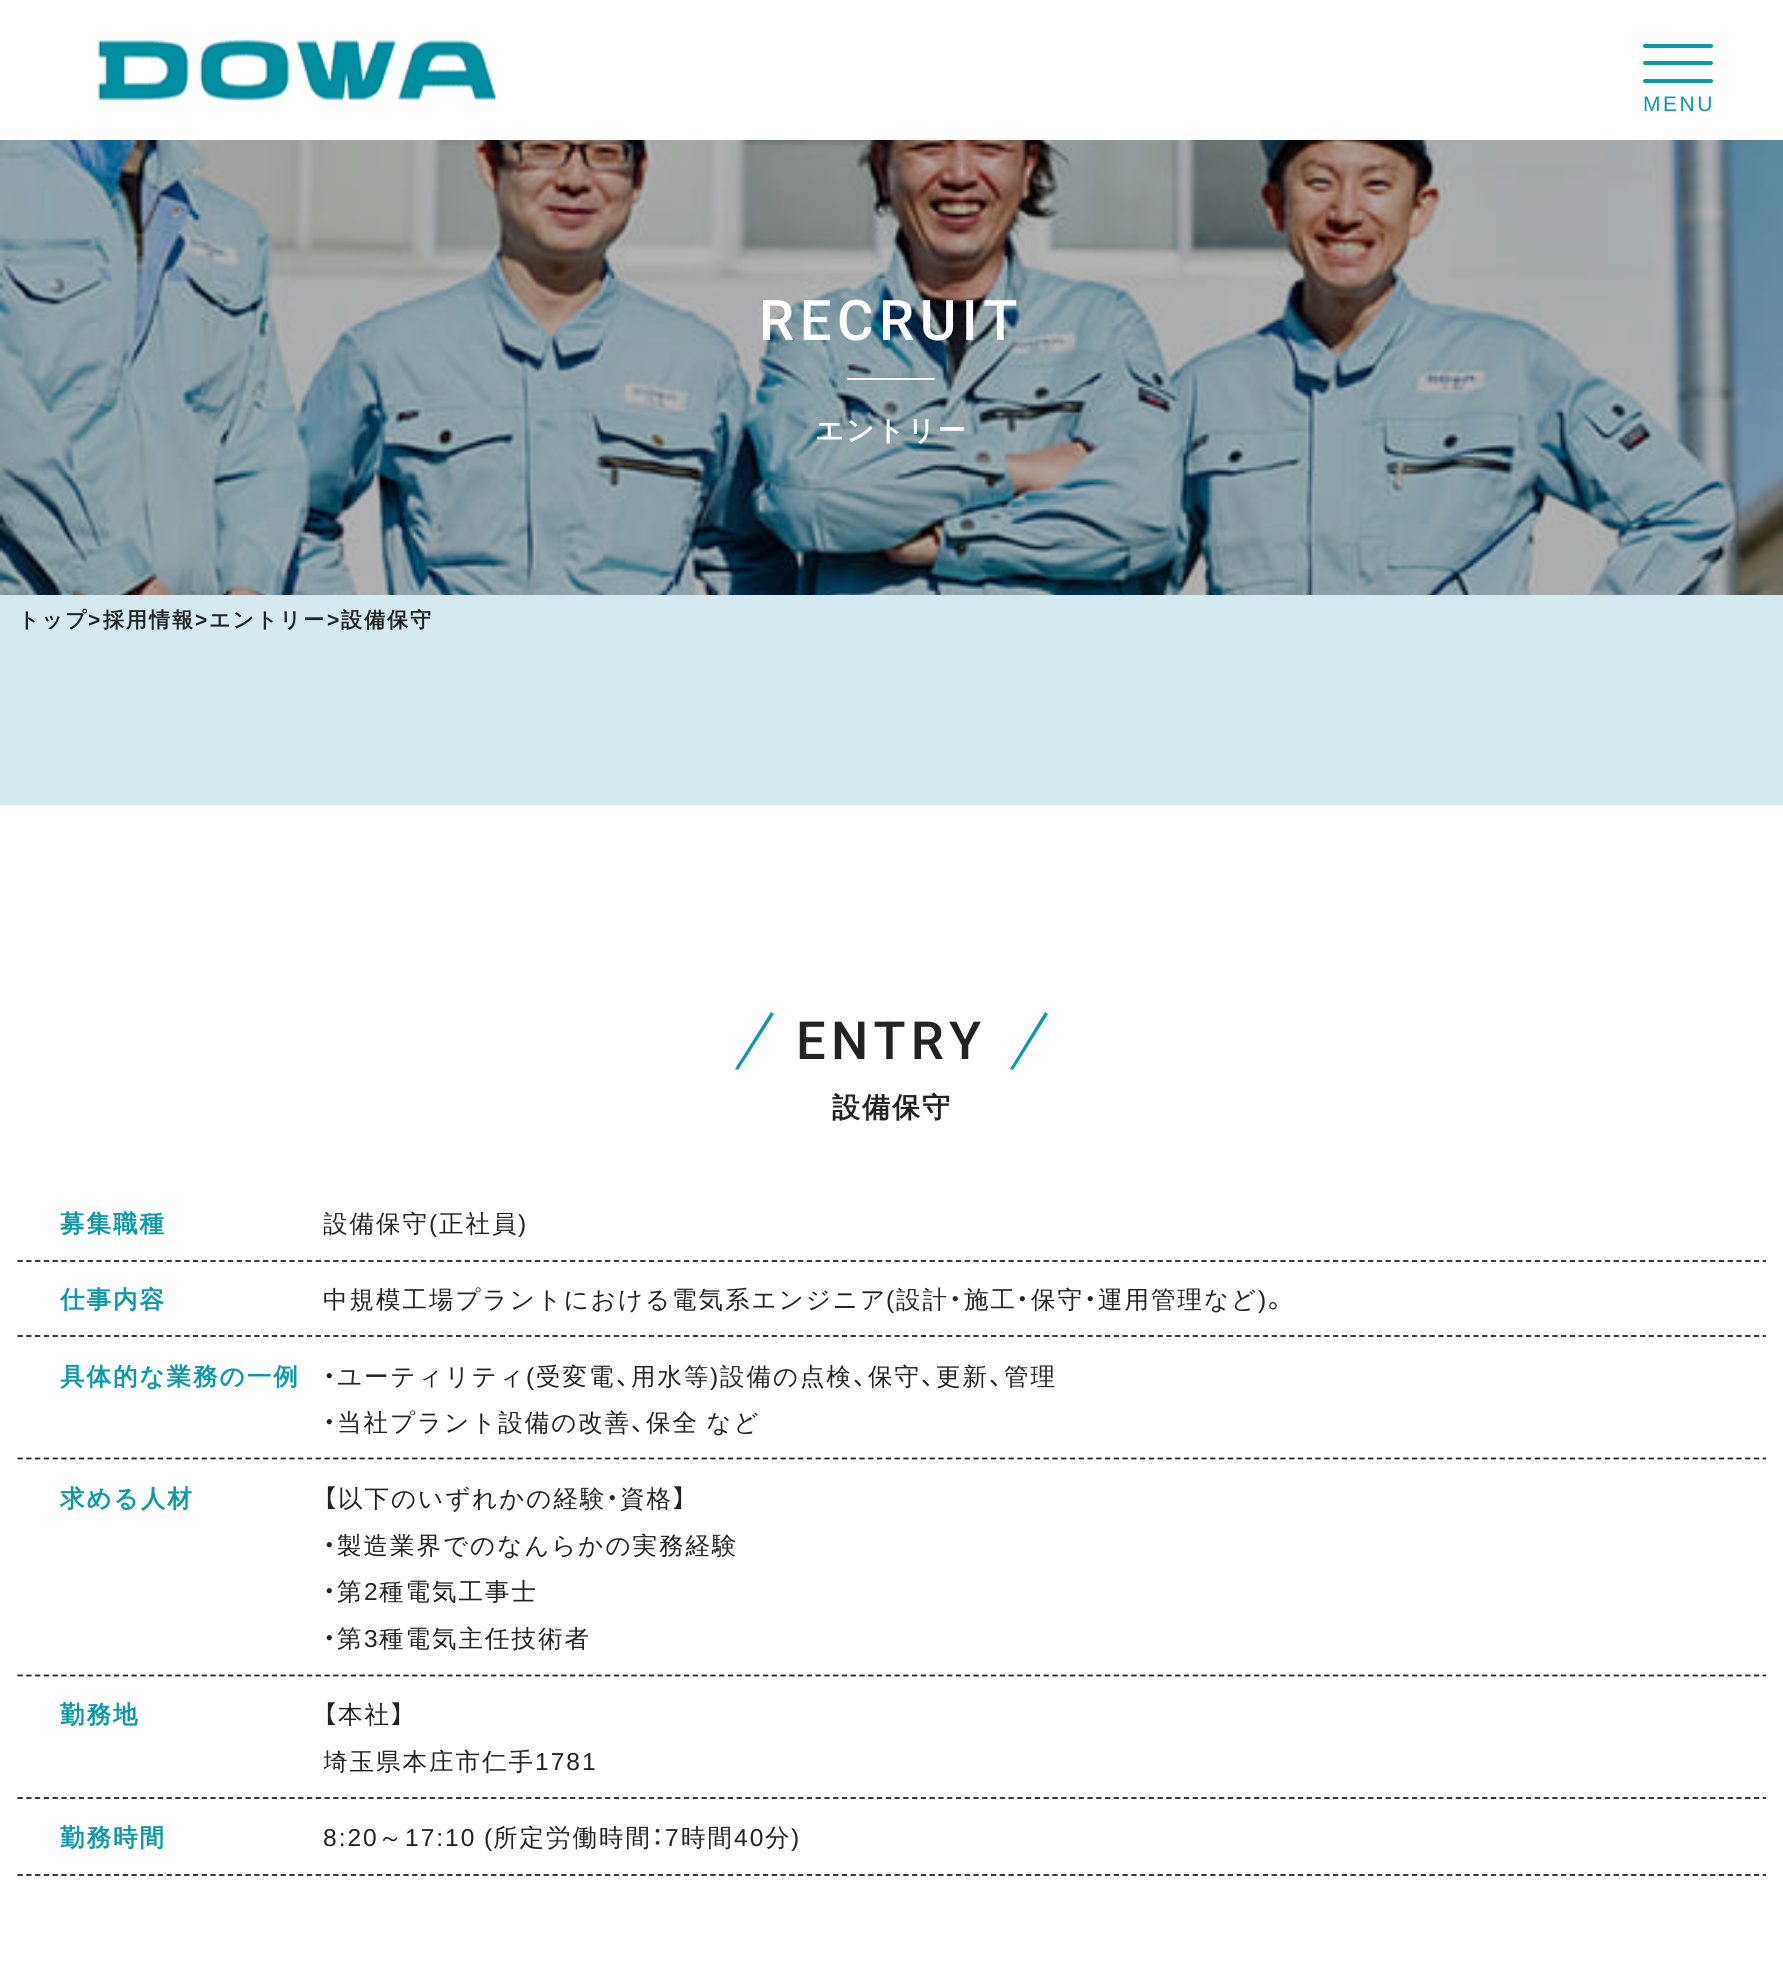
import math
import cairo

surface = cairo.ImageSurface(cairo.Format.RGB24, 1783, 1979)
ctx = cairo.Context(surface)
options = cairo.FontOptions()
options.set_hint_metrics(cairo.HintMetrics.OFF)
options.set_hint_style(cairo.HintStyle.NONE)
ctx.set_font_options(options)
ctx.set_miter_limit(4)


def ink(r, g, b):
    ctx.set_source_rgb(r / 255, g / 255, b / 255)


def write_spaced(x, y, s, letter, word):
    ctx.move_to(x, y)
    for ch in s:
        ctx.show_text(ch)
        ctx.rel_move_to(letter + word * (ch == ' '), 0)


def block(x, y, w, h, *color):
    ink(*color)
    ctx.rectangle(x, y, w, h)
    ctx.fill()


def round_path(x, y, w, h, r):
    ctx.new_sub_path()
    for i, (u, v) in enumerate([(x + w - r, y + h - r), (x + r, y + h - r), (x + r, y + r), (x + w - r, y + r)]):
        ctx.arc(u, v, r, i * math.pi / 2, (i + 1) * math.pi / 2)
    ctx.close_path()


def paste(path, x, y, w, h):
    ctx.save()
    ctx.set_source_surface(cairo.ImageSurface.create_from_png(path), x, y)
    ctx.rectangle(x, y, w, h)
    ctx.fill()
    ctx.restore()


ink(255, 255, 255)
ctx.paint()
paste("pic1.png", 97, 38, 400, 64)
ink(11, 153, 170)
round_path(1643, 44, 70, 4, 2)
ctx.fill()
round_path(1643, 61, 70, 4, 2)
ctx.fill()
round_path(1643, 79, 70, 4, 2)
ctx.fill()
ctx.select_font_face("Liberation Sans")
ctx.set_font_size(21)
write_spaced(1643, 111, "MENU", 2.5, 0)
paste("pic2.png", 0, 140, 1783, 455)
ctx.select_font_face("Roboto Medium")
ctx.set_font_size(56)
ink(255, 255, 255)
write_spaced(759, 340, "RECRUIT", 5.5, 0)
block(847, 378, 88, 2, 255, 255, 255)
ctx.select_font_face("WenQuanYi Zen Hei", cairo.FontSlant.NORMAL, cairo.FontWeight.BOLD)
ctx.set_font_size(28)
write_spaced(815, 440, "エントリー", 2, 0)
block(0, 595, 1783, 210, 213, 233, 241)
ctx.set_font_size(21)
ink(34, 34, 34)
write_spaced(18, 627, "トップ", 2, 0)
ctx.select_font_face("Liberation Sans", cairo.FontSlant.NORMAL, cairo.FontWeight.BOLD)
write_spaced(88, 627, ">", 2, 0)
ctx.select_font_face("WenQuanYi Zen Hei", cairo.FontSlant.NORMAL, cairo.FontWeight.BOLD)
write_spaced(103, 627, "採用情報", 2, 0)
ctx.select_font_face("Liberation Sans", cairo.FontSlant.NORMAL, cairo.FontWeight.BOLD)
write_spaced(195, 627, ">", 2, 0)
ctx.select_font_face("WenQuanYi Zen Hei", cairo.FontSlant.NORMAL, cairo.FontWeight.BOLD)
write_spaced(209, 627, "エントリー", 2, 0)
ctx.select_font_face("Liberation Sans", cairo.FontSlant.NORMAL, cairo.FontWeight.BOLD)
write_spaced(327, 627, ">", 2, 0)
ctx.select_font_face("WenQuanYi Zen Hei", cairo.FontSlant.NORMAL, cairo.FontWeight.BOLD)
write_spaced(341, 627, "設備保守", 2, 0)
ink(11, 153, 170)
ctx.new_path()
ctx.move_to(771, 1012)
ctx.line_to(774, 1014)
ctx.line_to(738, 1070)
ctx.line_to(735, 1069)
ctx.close_path()
ctx.fill()
ctx.select_font_face("Roboto Medium")
ctx.set_font_size(52.5)
ink(34, 34, 34)
write_spaced(796, 1059, "ENTRY", 5.25, 0)
ink(11, 153, 170)
ctx.new_path()
ctx.move_to(1045, 1012)
ctx.line_to(1048, 1014)
ctx.line_to(1013, 1070)
ctx.line_to(1010, 1069)
ctx.close_path()
ctx.fill()
ctx.select_font_face("WenQuanYi Zen Hei", cairo.FontSlant.NORMAL, cairo.FontWeight.BOLD)
ctx.set_font_size(28)
ink(34, 34, 34)
write_spaced(832, 1117, "設備保守", 2, 0)
ctx.new_path()
ctx.move_to(17.5, 1261)
ctx.line_to(1766, 1261)
ctx.set_line_width(1.8)
ctx.set_dash([5.25, 3.52])
ctx.stroke()
ctx.set_font_size(24.5)
ink(11, 153, 170)
write_spaced(60, 1232, "募集職種", 2, 0)
ctx.save()
ctx.rectangle(324, 1185, 1400, 75)
ctx.clip()
ctx.select_font_face("WenQuanYi Zen Hei Medium")
ink(34, 34, 34)
write_spaced(323, 1232, "設備保守", 2, 0)
ctx.restore()
ctx.select_font_face("Liberation Sans")
ink(34, 34, 34)
write_spaced(429, 1232, "(", 2, 0)
ctx.select_font_face("WenQuanYi Zen Hei Medium")
write_spaced(439, 1232, "正社員", 2, 0)
ctx.select_font_face("Liberation Sans")
write_spaced(518, 1232, ")", 2, 0)
ctx.new_path()
ctx.move_to(17.5, 1336)
ctx.line_to(1766, 1336)
ctx.stroke()
ctx.select_font_face("WenQuanYi Zen Hei", cairo.FontSlant.NORMAL, cairo.FontWeight.BOLD)
ink(11, 153, 170)
write_spaced(60, 1308, "仕事内容", 2, 0)
ctx.select_font_face("WenQuanYi Zen Hei Medium")
ink(34, 34, 34)
write_spaced(323, 1308, "中規模工場プラントにおける電気系エンジニア", 2, 0)
ctx.select_font_face("Liberation Sans")
write_spaced(886, 1308, "(", 2, 0)
ctx.select_font_face("WenQuanYi Zen Hei Medium")
write_spaced(896, 1308, "設計", 2, 0)
ctx.select_font_face("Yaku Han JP")
write_spaced(949, 1308, "・", 2, 0)
ctx.select_font_face("WenQuanYi Zen Hei Medium")
write_spaced(964, 1308, "施工", 2, 0)
ctx.select_font_face("Yaku Han JP")
write_spaced(1016, 1308, "・", 2, 0)
ctx.select_font_face("WenQuanYi Zen Hei Medium")
write_spaced(1031, 1308, "保守", 2, 0)
ctx.select_font_face("Yaku Han JP")
write_spaced(1084, 1308, "・", 2, 0)
ctx.select_font_face("WenQuanYi Zen Hei Medium")
write_spaced(1098, 1308, "運用管理など", 2, 0)
ctx.select_font_face("Liberation Sans")
write_spaced(1258, 1308, ")", 2, 0)
ctx.select_font_face("Yaku Han JP")
write_spaced(1268, 1308, "。", 2, 0)
ctx.new_path()
ctx.move_to(17.5, 1458.5)
ctx.line_to(1766, 1458.5)
ctx.stroke()
ctx.select_font_face("WenQuanYi Zen Hei", cairo.FontSlant.NORMAL, cairo.FontWeight.BOLD)
ink(11, 153, 170)
write_spaced(60, 1385, "具体的な業務の一例", 2, 0)
ctx.select_font_face("Yaku Han JP")
ink(34, 34, 34)
write_spaced(323, 1385, "・", 2, 0)
ctx.select_font_face("WenQuanYi Zen Hei Medium")
write_spaced(337, 1385, "ユーティリティ", 2, 0)
ctx.select_font_face("Liberation Sans")
write_spaced(526, 1385, "(", 2, 0)
ctx.select_font_face("WenQuanYi Zen Hei Medium")
write_spaced(536, 1385, "受変電", 2, 0)
write_spaced(631, 1385, "用水等", 2, 0)
ctx.select_font_face("Liberation Sans")
write_spaced(710, 1385, ")", 2, 0)
ctx.select_font_face("WenQuanYi Zen Hei Medium")
write_spaced(720, 1385, "設備の点検", 2, 0)
write_spaced(868, 1385, "保守", 2, 0)
write_spaced(936, 1385, "更新", 2, 0)
write_spaced(1004, 1385, "管理", 2, 0)
ctx.select_font_face("Yaku Han JP")
write_spaced(616, 1385, "、", 2, 0)
write_spaced(853, 1385, "、", 2, 0)
write_spaced(921, 1385, "、", 2, 0)
write_spaced(989, 1385, "、", 2, 0)
write_spaced(323, 1431, "・", 2, 0)
ctx.select_font_face("WenQuanYi Zen Hei Medium")
write_spaced(337, 1431, "当社プラント設備の改善", 2, 0)
write_spaced(646, 1431, "保全 など", 2, -2)
ctx.select_font_face("Yaku Han JP")
write_spaced(631, 1431, "、", 2, 0)
ctx.new_path()
ctx.move_to(17.5, 1675.5)
ctx.line_to(1766, 1675.5)
ctx.stroke()
ctx.select_font_face("WenQuanYi Zen Hei", cairo.FontSlant.NORMAL, cairo.FontWeight.BOLD)
ink(11, 153, 170)
write_spaced(60, 1507, "求める人材", 2, 0)
ctx.select_font_face("Yaku Han JP")
ink(34, 34, 34)
write_spaced(323, 1507, "【", 2, 0)
ctx.select_font_face("WenQuanYi Zen Hei Medium")
write_spaced(338, 1507, "以下のいずれかの経験", 2, 0)
ctx.select_font_face("Yaku Han JP")
write_spaced(606, 1507, "・", 2, 0)
ctx.select_font_face("WenQuanYi Zen Hei Medium")
write_spaced(620, 1507, "資格", 2, 0)
ctx.select_font_face("Yaku Han JP")
write_spaced(673, 1507, "】", 2, 0)
write_spaced(323, 1554, "・", 2, 0)
ctx.select_font_face("WenQuanYi Zen Hei Medium")
write_spaced(337, 1554, "製造業界でのなんらかの実務経験", 2, 0)
ctx.select_font_face("Yaku Han JP")
write_spaced(323, 1600, "・", 2, 0)
ctx.select_font_face("WenQuanYi Zen Hei Medium")
write_spaced(337, 1600, "第", 2, 0)
ctx.select_font_face("Liberation Sans")
write_spaced(364, 1600, "2", 2, 0)
ctx.select_font_face("WenQuanYi Zen Hei Medium")
write_spaced(379, 1600, "種電気工事士", 2, 0)
ctx.select_font_face("Yaku Han JP")
write_spaced(323, 1647, "・", 2, 0)
ctx.select_font_face("WenQuanYi Zen Hei Medium")
write_spaced(337, 1647, "第", 2, 0)
ctx.select_font_face("Liberation Sans")
write_spaced(364, 1647, "3", 2, 0)
ctx.select_font_face("WenQuanYi Zen Hei Medium")
write_spaced(379, 1647, "種電気主任技術者", 2, 0)
ctx.new_path()
ctx.move_to(17.5, 1798)
ctx.line_to(1766, 1798)
ctx.stroke()
ctx.select_font_face("WenQuanYi Zen Hei", cairo.FontSlant.NORMAL, cairo.FontWeight.BOLD)
ink(11, 153, 170)
write_spaced(60, 1723, "勤務地", 2, 0)
ctx.select_font_face("Yaku Han JP")
ink(34, 34, 34)
write_spaced(323, 1723, "【", 2, 0)
ctx.select_font_face("WenQuanYi Zen Hei Medium")
write_spaced(338, 1723, "本社", 2, 0)
ctx.select_font_face("Yaku Han JP")
write_spaced(391, 1723, "】", 2, 0)
ctx.save()
ctx.rectangle(324, 1677, 1400, 120)
ctx.clip()
ctx.select_font_face("WenQuanYi Zen Hei Medium")
write_spaced(323, 1770, "埼玉県本庄市仁手", 2, 0)
ctx.restore()
ctx.select_font_face("Liberation Sans")
write_spaced(535, 1770, "1781", 2, 0)
ctx.new_path()
ctx.move_to(17.5, 1875)
ctx.line_to(1766, 1875)
ctx.stroke()
ctx.select_font_face("WenQuanYi Zen Hei", cairo.FontSlant.NORMAL, cairo.FontWeight.BOLD)
ink(11, 153, 170)
write_spaced(60, 1846, "勤務時間", 2, 0)
ctx.select_font_face("Liberation Sans")
ink(34, 34, 34)
write_spaced(323, 1846, "8:20", 2, 0)
ctx.select_font_face("WenQuanYi Zen Hei Medium")
write_spaced(378, 1846, "～", 2, 0)
ctx.select_font_face("Liberation Sans")
write_spaced(405, 1846, "17:10 (", 2, -1)
ctx.select_font_face("WenQuanYi Zen Hei Medium")
write_spaced(493, 1846, "所定労働時間", 2, 0)
ctx.select_font_face("Yaku Han JP")
write_spaced(652, 1846, "：", 2, 0)
ctx.select_font_face("Liberation Sans")
write_spaced(665, 1846, "7", 2, 0)
ctx.select_font_face("WenQuanYi Zen Hei Medium")
write_spaced(681, 1846, "時間", 2, 0)
ctx.select_font_face("Liberation Sans")
write_spaced(734, 1846, "40", 2, 0)
ctx.select_font_face("WenQuanYi Zen Hei Medium")
write_spaced(765, 1846, "分", 2, 0)
ctx.select_font_face("Liberation Sans")
write_spaced(791, 1846, ")", 2, 0)
surface.write_to_png("screenshot.png")
